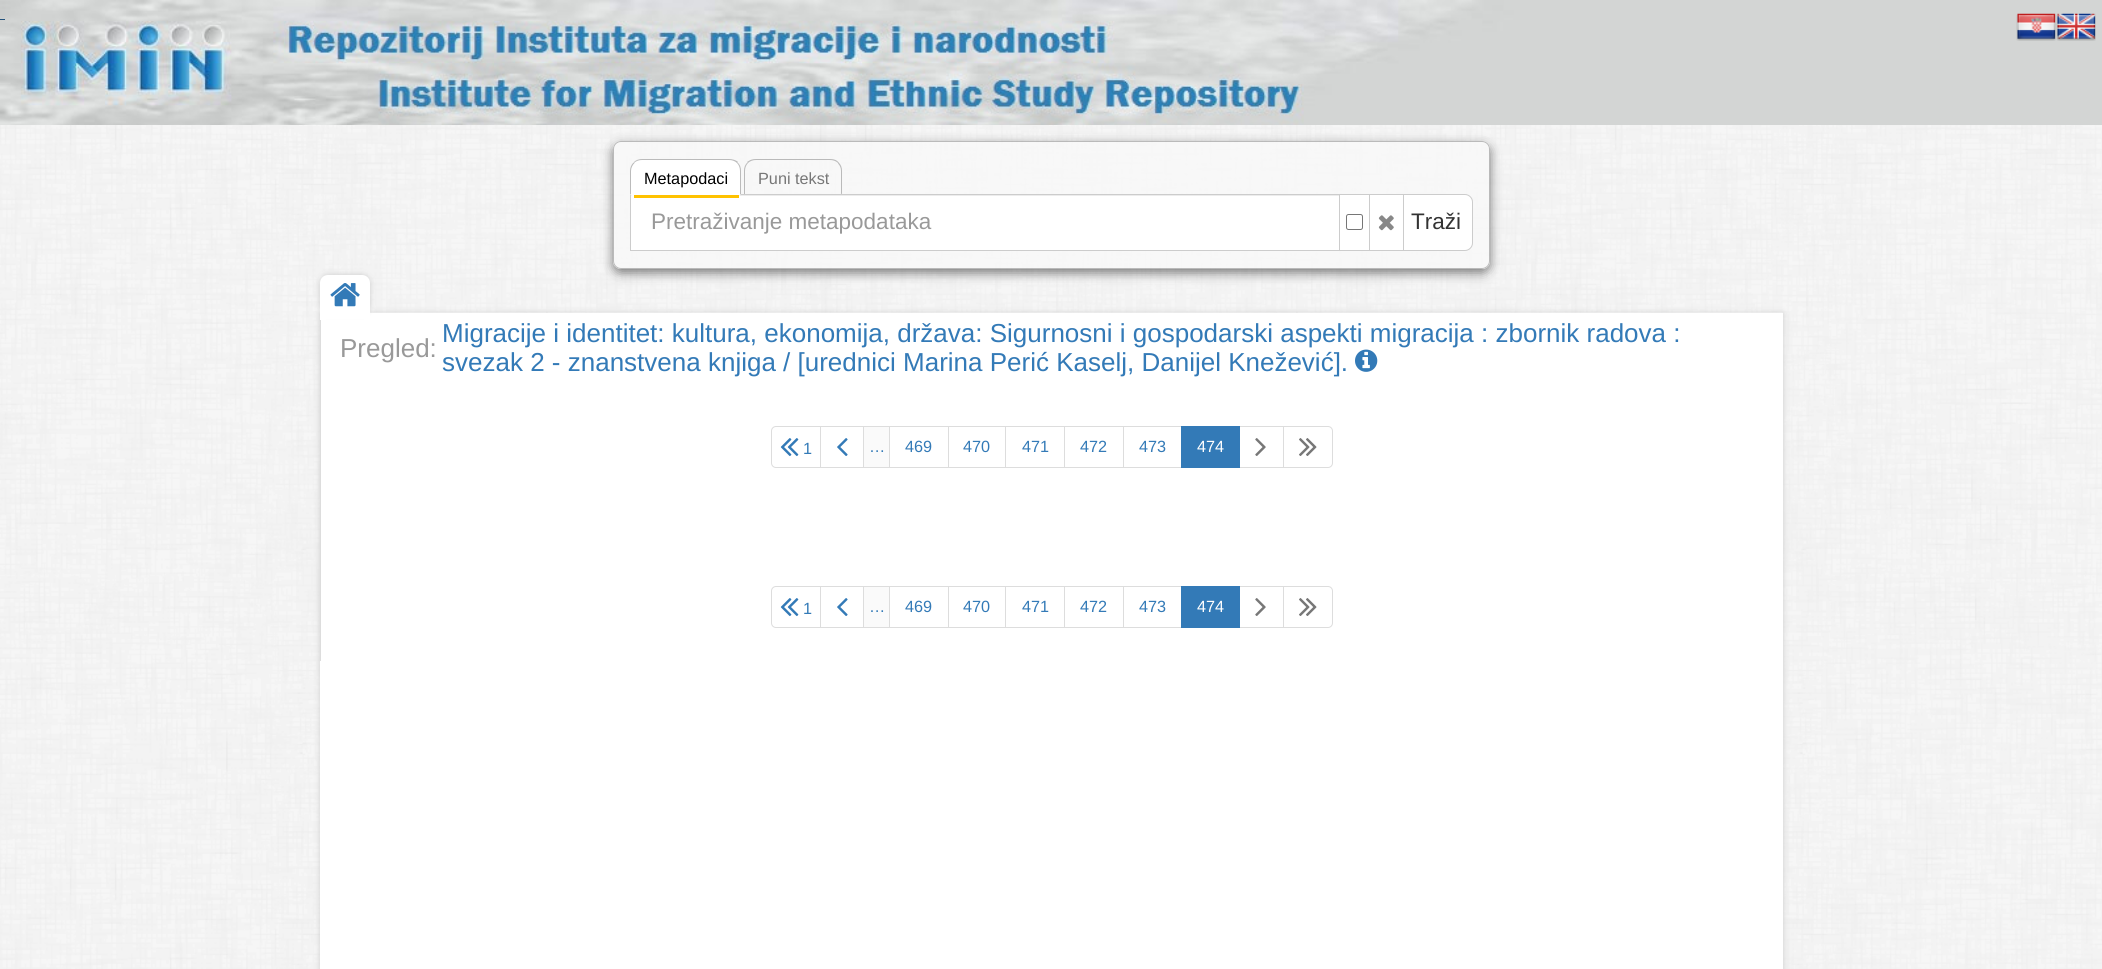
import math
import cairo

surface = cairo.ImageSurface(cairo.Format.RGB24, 2102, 969)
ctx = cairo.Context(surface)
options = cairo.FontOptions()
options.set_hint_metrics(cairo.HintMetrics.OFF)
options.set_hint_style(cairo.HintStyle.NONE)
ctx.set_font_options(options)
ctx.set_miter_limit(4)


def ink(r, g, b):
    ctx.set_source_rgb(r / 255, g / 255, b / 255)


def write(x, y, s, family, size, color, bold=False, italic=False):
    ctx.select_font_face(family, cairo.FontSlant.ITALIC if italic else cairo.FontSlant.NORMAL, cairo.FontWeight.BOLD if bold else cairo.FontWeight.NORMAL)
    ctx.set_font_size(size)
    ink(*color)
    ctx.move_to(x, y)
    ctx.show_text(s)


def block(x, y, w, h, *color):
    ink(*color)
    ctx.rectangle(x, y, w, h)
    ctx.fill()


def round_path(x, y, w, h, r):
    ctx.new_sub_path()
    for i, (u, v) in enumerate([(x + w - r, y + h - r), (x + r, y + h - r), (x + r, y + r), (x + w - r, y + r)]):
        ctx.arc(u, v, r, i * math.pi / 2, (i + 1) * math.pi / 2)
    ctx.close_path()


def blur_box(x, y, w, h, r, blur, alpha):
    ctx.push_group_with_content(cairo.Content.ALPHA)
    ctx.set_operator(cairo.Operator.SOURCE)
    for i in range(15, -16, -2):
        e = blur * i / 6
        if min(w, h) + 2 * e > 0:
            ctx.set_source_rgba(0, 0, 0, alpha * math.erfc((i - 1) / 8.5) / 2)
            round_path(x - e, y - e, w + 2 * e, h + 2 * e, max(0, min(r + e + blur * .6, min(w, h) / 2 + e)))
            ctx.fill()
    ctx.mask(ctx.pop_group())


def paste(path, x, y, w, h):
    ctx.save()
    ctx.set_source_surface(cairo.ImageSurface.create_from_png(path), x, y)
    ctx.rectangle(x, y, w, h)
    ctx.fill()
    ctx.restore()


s1 = dict(family="Liberation Sans", size=16.25, color=(0, 0, 0))
s2 = dict(family="Liberation Sans", size=16.25, color=(119, 119, 119))
s3 = dict(family="Liberation Sans", size=22.5, color=(153, 153, 153))
s4 = dict(family="Liberation Sans", size=22.5, color=(51, 51, 51))
s5 = dict(family="Liberation Sans", size=26, color=(153, 153, 153))
s6 = dict(family="Liberation Sans", size=26, color=(51, 122, 183))
s7 = dict(family="Liberation Sans", size=16.25, color=(51, 122, 183))
s8 = dict(family="Liberation Sans", size=16.25, color=(255, 255, 255))

ink(255, 255, 255)
ctx.paint()
paste("pic1.png", 0, 125, 2102, 844)
paste("pic2.png", 0, 0, 2102, 125)
block(0, 19, 5, 1, 35, 82, 124)
paste("pic3.png", 2016, 13, 40, 28)
paste("pic4.png", 2056, 13, 40, 28)
ctx.save()
ctx.set_fill_rule(cairo.FillRule.EVEN_ODD)
ctx.new_path()
ctx.move_to(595, 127)
ctx.line_to(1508, 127)
ctx.line_to(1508, 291)
ctx.line_to(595, 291)
ctx.close_path()
ctx.move_to(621, 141)
ctx.line_to(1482, 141)
ctx.curve_to(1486.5, 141, 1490, 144.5, 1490, 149)
ctx.line_to(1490, 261)
ctx.curve_to(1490, 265.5, 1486.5, 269, 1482, 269)
ctx.line_to(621, 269)
ctx.curve_to(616.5, 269, 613, 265.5, 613, 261)
ctx.line_to(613, 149)
ctx.curve_to(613, 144.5, 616.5, 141, 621, 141)
ctx.close_path()
ctx.clip()
ink(0, 0, 0)
blur_box(613, 145, 877, 128, 8, 5.5, 0.5)
ctx.restore()
ctx.set_source_rgba(0.973, 0.973, 0.973, 0.8)
round_path(613, 141, 877, 128, 8)
ctx.fill()
round_path(613.5, 141.5, 876, 127, 7.5)
ctx.set_source_rgba(0.667, 0.667, 0.667, 0.8)
ctx.set_line_width(1)
ctx.stroke()
ink(186, 186, 186)
ctx.new_path()
ctx.move_to(756, 159)
ctx.curve_to(752, 159, 750, 160, 747, 162)
ctx.line_to(748, 163)
ctx.curve_to(750, 161, 753, 160, 756, 160)
ctx.line_to(830, 160)
ctx.curve_to(833, 160, 836, 161, 838, 163)
ctx.line_to(839, 163)
ctx.curve_to(837, 160, 834, 159, 830, 159)
ctx.close_path()
ctx.fill()
ctx.new_path()
ctx.move_to(842, 194.5)
ctx.line_to(842, 171)
ctx.curve_to(842, 167.5, 841, 164.5, 838.5, 162.5)
ctx.line_to(838, 163.5)
ctx.curve_to(840, 165.5, 841, 168, 841, 171)
ctx.line_to(841, 193.5)
ctx.close_path()
ctx.fill()
ctx.new_path()
ctx.move_to(747.5, 162.5)
ctx.curve_to(745, 164.5, 744, 167.5, 744, 171)
ctx.line_to(744, 195)
ctx.line_to(745, 194)
ctx.line_to(745, 171)
ctx.curve_to(745, 168, 746, 165, 748, 163)
ctx.close_path()
ctx.fill()
block(631, 196, 708, 54, 255, 255, 255)
block(631, 195, 708, 1, 236, 236, 236)
ctx.rectangle(630.5, 194.5, 709, 56)
ink(204, 204, 204)
ctx.stroke()
ink(255, 255, 255)
ctx.new_path()
ctx.move_to(643, 159)
ctx.line_to(728, 159)
ctx.curve_to(735, 159, 741, 165, 741, 172)
ctx.line_to(741, 195)
ctx.line_to(630, 195)
ctx.line_to(630, 172)
ctx.curve_to(630, 165, 636, 159, 643, 159)
ctx.close_path()
ctx.fill()
ctx.set_source_rgba(0.667, 0.667, 0.667, 0.8)
ctx.new_path()
ctx.move_to(642, 159)
ctx.curve_to(639, 159, 636, 160, 634, 162)
ctx.line_to(634, 163)
ctx.curve_to(636, 161, 639, 160, 642, 160)
ctx.line_to(729, 160)
ctx.curve_to(732, 160, 735, 161, 737, 163)
ctx.line_to(738, 162)
ctx.curve_to(736, 160, 732, 159, 729, 159)
ctx.close_path()
ctx.fill()
ctx.new_path()
ctx.move_to(741, 195)
ctx.line_to(741, 171)
ctx.curve_to(741, 167.5, 740, 164.5, 737.5, 162.5)
ctx.line_to(737, 163)
ctx.curve_to(739, 165, 740, 168, 740, 171)
ctx.line_to(740, 194)
ctx.close_path()
ctx.fill()
ctx.new_path()
ctx.move_to(630, 195)
ctx.line_to(631, 194)
ctx.line_to(631, 171)
ctx.curve_to(631, 168, 632.5, 165, 634.5, 163)
ctx.line_to(633.5, 162.5)
ctx.curve_to(631.5, 164.5, 630, 167.5, 630, 171)
ctx.close_path()
ctx.fill()
write(644, 184, "Metapodaci", **s1)
ink(255, 255, 255)
ctx.new_path()
ctx.move_to(631, 190)
ctx.line_to(740, 190)
ctx.line_to(740, 194)
ctx.curve_to(740, 196, 738, 198, 736, 198)
ctx.line_to(635, 198)
ctx.curve_to(633, 198, 631, 196, 631, 194)
ctx.close_path()
ctx.fill()
block(634, 195, 105, 3, 255, 194, 0)
write(758, 184, "Puni tekst", **s2)
write(651, 229, "Pretraživanje metapodataka", **s3)
ink(255, 255, 255)
ctx.rectangle(1339.5, 194.5, 30, 56)
ctx.fill_preserve()
ink(204, 204, 204)
ctx.stroke()
round_path(1346.5, 214.5, 16, 15, 2)
ink(118, 118, 118)
ctx.stroke()
ink(255, 255, 255)
ctx.rectangle(1369.5, 194.5, 34, 56)
ctx.fill_preserve()
ink(204, 204, 204)
ctx.stroke()
paste("pic5.png", 1378, 215, 16, 16)
ink(255, 255, 255)
ctx.new_path()
ctx.move_to(1403.5, 194.5)
ctx.line_to(1465, 194.5)
ctx.curve_to(1469, 194.5, 1472.5, 198, 1472.5, 202)
ctx.line_to(1472.5, 243)
ctx.curve_to(1472.5, 247, 1469, 250.5, 1465, 250.5)
ctx.line_to(1403.5, 250.5)
ctx.close_path()
ctx.fill_preserve()
ink(204, 204, 204)
ctx.stroke()
write(1411, 229, "Traži", **s4)
ink(204, 204, 204)
blur_box(320, 313, 1463, 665, 0, 3, 1)
paste("pic6.png", 370, 312, 1413, 1)
block(320, 313, 1463, 656, 255, 255, 255)
ink(204, 204, 204)
blur_box(320, 275, 50, 38, 8, 3, 1)
ink(255, 255, 255)
ctx.new_path()
ctx.move_to(328, 275)
ctx.line_to(362, 275)
ctx.curve_to(366.5, 275, 370, 278.5, 370, 283)
ctx.line_to(370, 319)
ctx.line_to(320, 319)
ctx.line_to(320, 283)
ctx.curve_to(320, 278.5, 323.5, 275, 328, 275)
ctx.close_path()
ctx.fill()
paste("pic7.png", 330, 283, 30, 24)
block(320, 320, 1, 341, 221, 221, 221)
write(340, 357, "Pregled:", **s5)
write(442, 342, "Migracije i identitet: kultura, ekonomija, država: Sigurnosni i gospodarski aspekti migracija : zbornik radova :", **s6)
write(442, 371, "svezak 2 - znanstvena knjiga / [urednici Marina Perić Kaselj, Danijel Knežević].", **s6)
paste("pic8.png", 1355, 349, 23, 23)
ctx.new_path()
ctx.move_to(776, 426.5)
ctx.line_to(820.5, 426.5)
ctx.line_to(820.5, 467.5)
ctx.line_to(776, 467.5)
ctx.curve_to(773.5, 467.5, 771.5, 465.5, 771.5, 463)
ctx.line_to(771.5, 431)
ctx.curve_to(771.5, 428.5, 773.5, 426.5, 776, 426.5)
ctx.close_path()
ink(221, 221, 221)
ctx.stroke()
paste("pic9.png", 780, 438, 19, 19)
write(803, 454, "1", **s7)
ctx.rectangle(820.5, 426.5, 43, 41)
ink(221, 221, 221)
ctx.stroke()
paste("pic10.png", 837, 438, 11, 18)
block(864, 427, 25, 40, 250, 250, 250)
ctx.rectangle(863.5, 426.5, 27, 41)
ink(221, 221, 221)
ctx.stroke()
write(869, 452, "…", **s7)
block(890, 427, 1, 40, 255, 255, 255)
ctx.rectangle(889.5, 426.5, 59, 41)
ink(221, 221, 221)
ctx.stroke()
write(905, 452, "469", **s7)
ctx.rectangle(948.5, 426.5, 57, 41)
ink(221, 221, 221)
ctx.stroke()
write(963, 452, "470", **s7)
ctx.rectangle(1005.5, 426.5, 59, 41)
ink(221, 221, 221)
ctx.stroke()
write(1022, 452, "471", **s7)
ctx.rectangle(1064.5, 426.5, 59, 41)
ink(221, 221, 221)
ctx.stroke()
write(1080, 452, "472", **s7)
ctx.rectangle(1123.5, 426.5, 59, 41)
ink(221, 221, 221)
ctx.stroke()
write(1139, 452, "473", **s7)
ctx.rectangle(1239.5, 426.5, 44, 41)
ink(221, 221, 221)
ctx.stroke()
block(1181, 426, 59, 42, 51, 122, 183)
write(1197, 452, "474", **s8)
paste("pic11.png", 1255, 438, 11, 18)
ctx.new_path()
ctx.move_to(1283.5, 426.5)
ctx.line_to(1328, 426.5)
ctx.curve_to(1330.5, 426.5, 1332.5, 428.5, 1332.5, 431)
ctx.line_to(1332.5, 463)
ctx.curve_to(1332.5, 465.5, 1330.5, 467.5, 1328, 467.5)
ctx.line_to(1283.5, 467.5)
ctx.close_path()
ctx.fill_preserve()
ink(221, 221, 221)
ctx.stroke()
paste("pic12.png", 1299, 438, 18, 18)
ctx.new_path()
ctx.move_to(776, 586.5)
ctx.line_to(820.5, 586.5)
ctx.line_to(820.5, 627.5)
ctx.line_to(776, 627.5)
ctx.curve_to(773.5, 627.5, 771.5, 625.5, 771.5, 623)
ctx.line_to(771.5, 591)
ctx.curve_to(771.5, 588.5, 773.5, 586.5, 776, 586.5)
ctx.close_path()
ctx.stroke()
paste("pic9.png", 780, 598, 19, 19)
write(803, 614, "1", **s7)
ctx.rectangle(820.5, 586.5, 43, 41)
ink(221, 221, 221)
ctx.stroke()
paste("pic10.png", 837, 598, 11, 18)
block(864, 587, 25, 40, 250, 250, 250)
ctx.rectangle(863.5, 586.5, 27, 41)
ink(221, 221, 221)
ctx.stroke()
write(869, 612, "…", **s7)
block(890, 587, 1, 40, 255, 255, 255)
ctx.rectangle(889.5, 586.5, 59, 41)
ink(221, 221, 221)
ctx.stroke()
write(905, 612, "469", **s7)
ctx.rectangle(948.5, 586.5, 57, 41)
ink(221, 221, 221)
ctx.stroke()
write(963, 612, "470", **s7)
ctx.rectangle(1005.5, 586.5, 59, 41)
ink(221, 221, 221)
ctx.stroke()
write(1022, 612, "471", **s7)
ctx.rectangle(1064.5, 586.5, 59, 41)
ink(221, 221, 221)
ctx.stroke()
write(1080, 612, "472", **s7)
ctx.rectangle(1123.5, 586.5, 59, 41)
ink(221, 221, 221)
ctx.stroke()
write(1139, 612, "473", **s7)
ctx.rectangle(1239.5, 586.5, 44, 41)
ink(221, 221, 221)
ctx.stroke()
block(1181, 586, 59, 42, 51, 122, 183)
write(1197, 612, "474", **s8)
paste("pic11.png", 1255, 598, 11, 18)
ctx.new_path()
ctx.move_to(1283.5, 586.5)
ctx.line_to(1328, 586.5)
ctx.curve_to(1330.5, 586.5, 1332.5, 588.5, 1332.5, 591)
ctx.line_to(1332.5, 623)
ctx.curve_to(1332.5, 625.5, 1330.5, 627.5, 1328, 627.5)
ctx.line_to(1283.5, 627.5)
ctx.close_path()
ctx.fill_preserve()
ink(221, 221, 221)
ctx.stroke()
paste("pic12.png", 1299, 598, 18, 18)
surface.write_to_png("screenshot.png")
